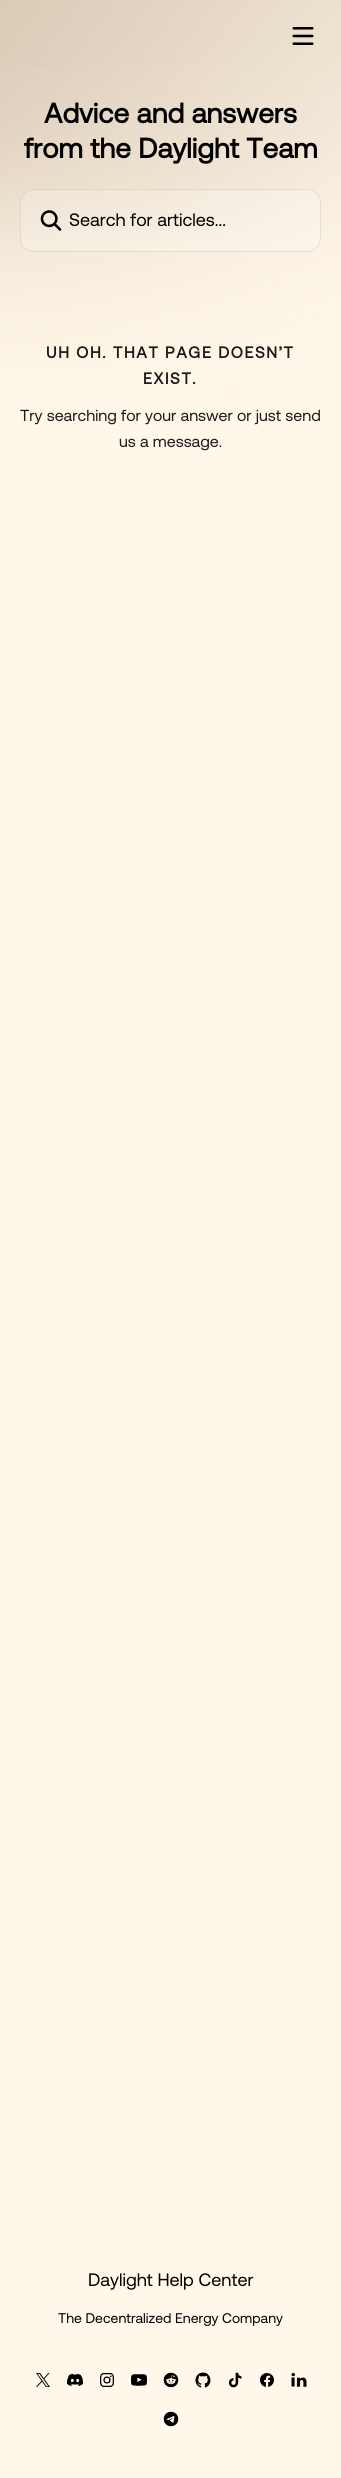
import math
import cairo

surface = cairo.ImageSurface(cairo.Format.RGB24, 341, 2478)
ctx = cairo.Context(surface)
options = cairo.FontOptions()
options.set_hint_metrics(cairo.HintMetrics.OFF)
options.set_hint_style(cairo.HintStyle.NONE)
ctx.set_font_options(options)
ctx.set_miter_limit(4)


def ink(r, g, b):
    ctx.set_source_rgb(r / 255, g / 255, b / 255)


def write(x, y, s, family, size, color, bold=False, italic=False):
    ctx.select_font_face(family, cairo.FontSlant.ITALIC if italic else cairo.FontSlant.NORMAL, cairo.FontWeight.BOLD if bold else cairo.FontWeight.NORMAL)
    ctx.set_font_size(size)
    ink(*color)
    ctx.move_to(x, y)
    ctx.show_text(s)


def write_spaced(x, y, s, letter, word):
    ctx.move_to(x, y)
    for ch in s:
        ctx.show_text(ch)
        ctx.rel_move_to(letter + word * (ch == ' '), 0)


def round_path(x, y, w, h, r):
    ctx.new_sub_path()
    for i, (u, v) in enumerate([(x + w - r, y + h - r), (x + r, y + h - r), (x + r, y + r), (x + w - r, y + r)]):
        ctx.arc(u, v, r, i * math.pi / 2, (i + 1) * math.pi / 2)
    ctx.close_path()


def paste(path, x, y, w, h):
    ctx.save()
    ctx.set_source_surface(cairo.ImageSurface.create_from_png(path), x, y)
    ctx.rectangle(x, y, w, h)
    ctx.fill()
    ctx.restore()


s1 = dict(family="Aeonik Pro", size=28, color=(0, 0, 0), bold=True)
s2 = dict(family="Aeonik Pro", size=18, color=(0, 0, 0))
s3 = dict(family="Aeonik Pro", size=16, color=(26, 26, 26))
s4 = dict(family="Aeonik Pro", size=14, color=(0, 0, 0))

ink(255, 247, 233)
ctx.paint()
gradient = cairo.LinearGradient(-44, 57, 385, 387)
gradient.add_color_stop_rgba(0, 0.855, 0.792, 0.714, 1)
gradient.add_color_stop_rgba(1, 1, 0.969, 0.914, 1)
ctx.set_source(gradient)
ctx.rectangle(0, 0, 341, 436)
ctx.fill()
gradient = cairo.RadialGradient(0, 0, 0, 0, 0, 1)
gradient.set_matrix(cairo.Matrix(1 / 1137, 0, 0, 1 / 444, -1 * 171 / 1137, -1 * 0 / 444))
gradient.add_color_stop_rgba(0, 1, 0.969, 0.914, 0)
gradient.add_color_stop_rgba(0.12, 1, 0.969, 0.914, 0.01)
gradient.add_color_stop_rgba(0.21, 1, 0.969, 0.914, 0.04)
gradient.add_color_stop_rgba(0.29, 1, 0.969, 0.914, 0.07)
gradient.add_color_stop_rgba(0.35, 1, 0.969, 0.914, 0.12)
gradient.add_color_stop_rgba(0.4, 1, 0.969, 0.914, 0.18)
gradient.add_color_stop_rgba(0.44, 1, 0.969, 0.914, 0.25)
gradient.add_color_stop_rgba(0.48, 1, 0.969, 0.914, 0.33)
gradient.add_color_stop_rgba(0.52, 1, 0.969, 0.914, 0.41)
gradient.add_color_stop_rgba(0.55, 1, 0.969, 0.914, 0.49)
gradient.add_color_stop_rgba(0.59, 1, 0.969, 0.914, 0.58)
gradient.add_color_stop_rgba(0.65, 1, 0.969, 0.914, 0.67)
gradient.add_color_stop_rgba(0.71, 1, 0.969, 0.914, 0.76)
gradient.add_color_stop_rgba(0.79, 1, 0.969, 0.914, 0.84)
gradient.add_color_stop_rgba(0.88, 1, 0.969, 0.914, 0.96)
gradient.add_color_stop_rgba(1, 1, 0.969, 0.914, 1)
ctx.set_source(gradient)
ctx.rectangle(0, 67, 341, 369)
ctx.fill()
paste("pic1.png", 292, 27, 22, 18)
write(44, 123, "Advice and answers", **s1)
write(24, 158, "from the Daylight Team", **s1)
ctx.set_source_rgba(1, 1, 1, 0.2)
round_path(20, 189, 301, 63, 14)
ctx.fill()
round_path(20.5, 189.5, 300, 62, 13.5)
ctx.set_source_rgba(0, 0, 0, 0.08)
ctx.set_line_width(1)
ctx.stroke()
paste("pic2.png", 40, 210, 22, 21)
write(69, 226, "Search for articles...", **s2)
ctx.select_font_face("Aeonik Pro", cairo.FontSlant.NORMAL, cairo.FontWeight.BOLD)
ctx.set_font_size(16)
ink(26, 26, 26)
write_spaced(46, 358, "UH OH. THAT PAGE DOESN’T", 1.6, 0)
write_spaced(143, 384, "EXIST.", 1.6, 0)
write(20, 421, "Try searching for your answer or just send", **s3)
write(119, 447, "us a message.", **s3)
write(88, 2286, "Daylight Help Center", **s2)
write(58, 2323, "The Decentralized Energy Company", **s4)
paste("pic3.png", 36, 2373, 14, 14)
paste("pic4.png", 67, 2373, 16, 13)
paste("pic5.png", 100, 2373, 14, 14)
paste("pic6.png", 131, 2374, 16, 12)
paste("pic7.png", 163, 2372, 16, 16)
paste("pic8.png", 195, 2372, 16, 16)
paste("pic9.png", 228, 2372, 14, 16)
paste("pic10.png", 260, 2373, 14, 14)
paste("pic11.png", 291, 2373, 16, 14)
paste("pic12.png", 163, 2411, 16, 16)
surface.write_to_png("screenshot.png")
